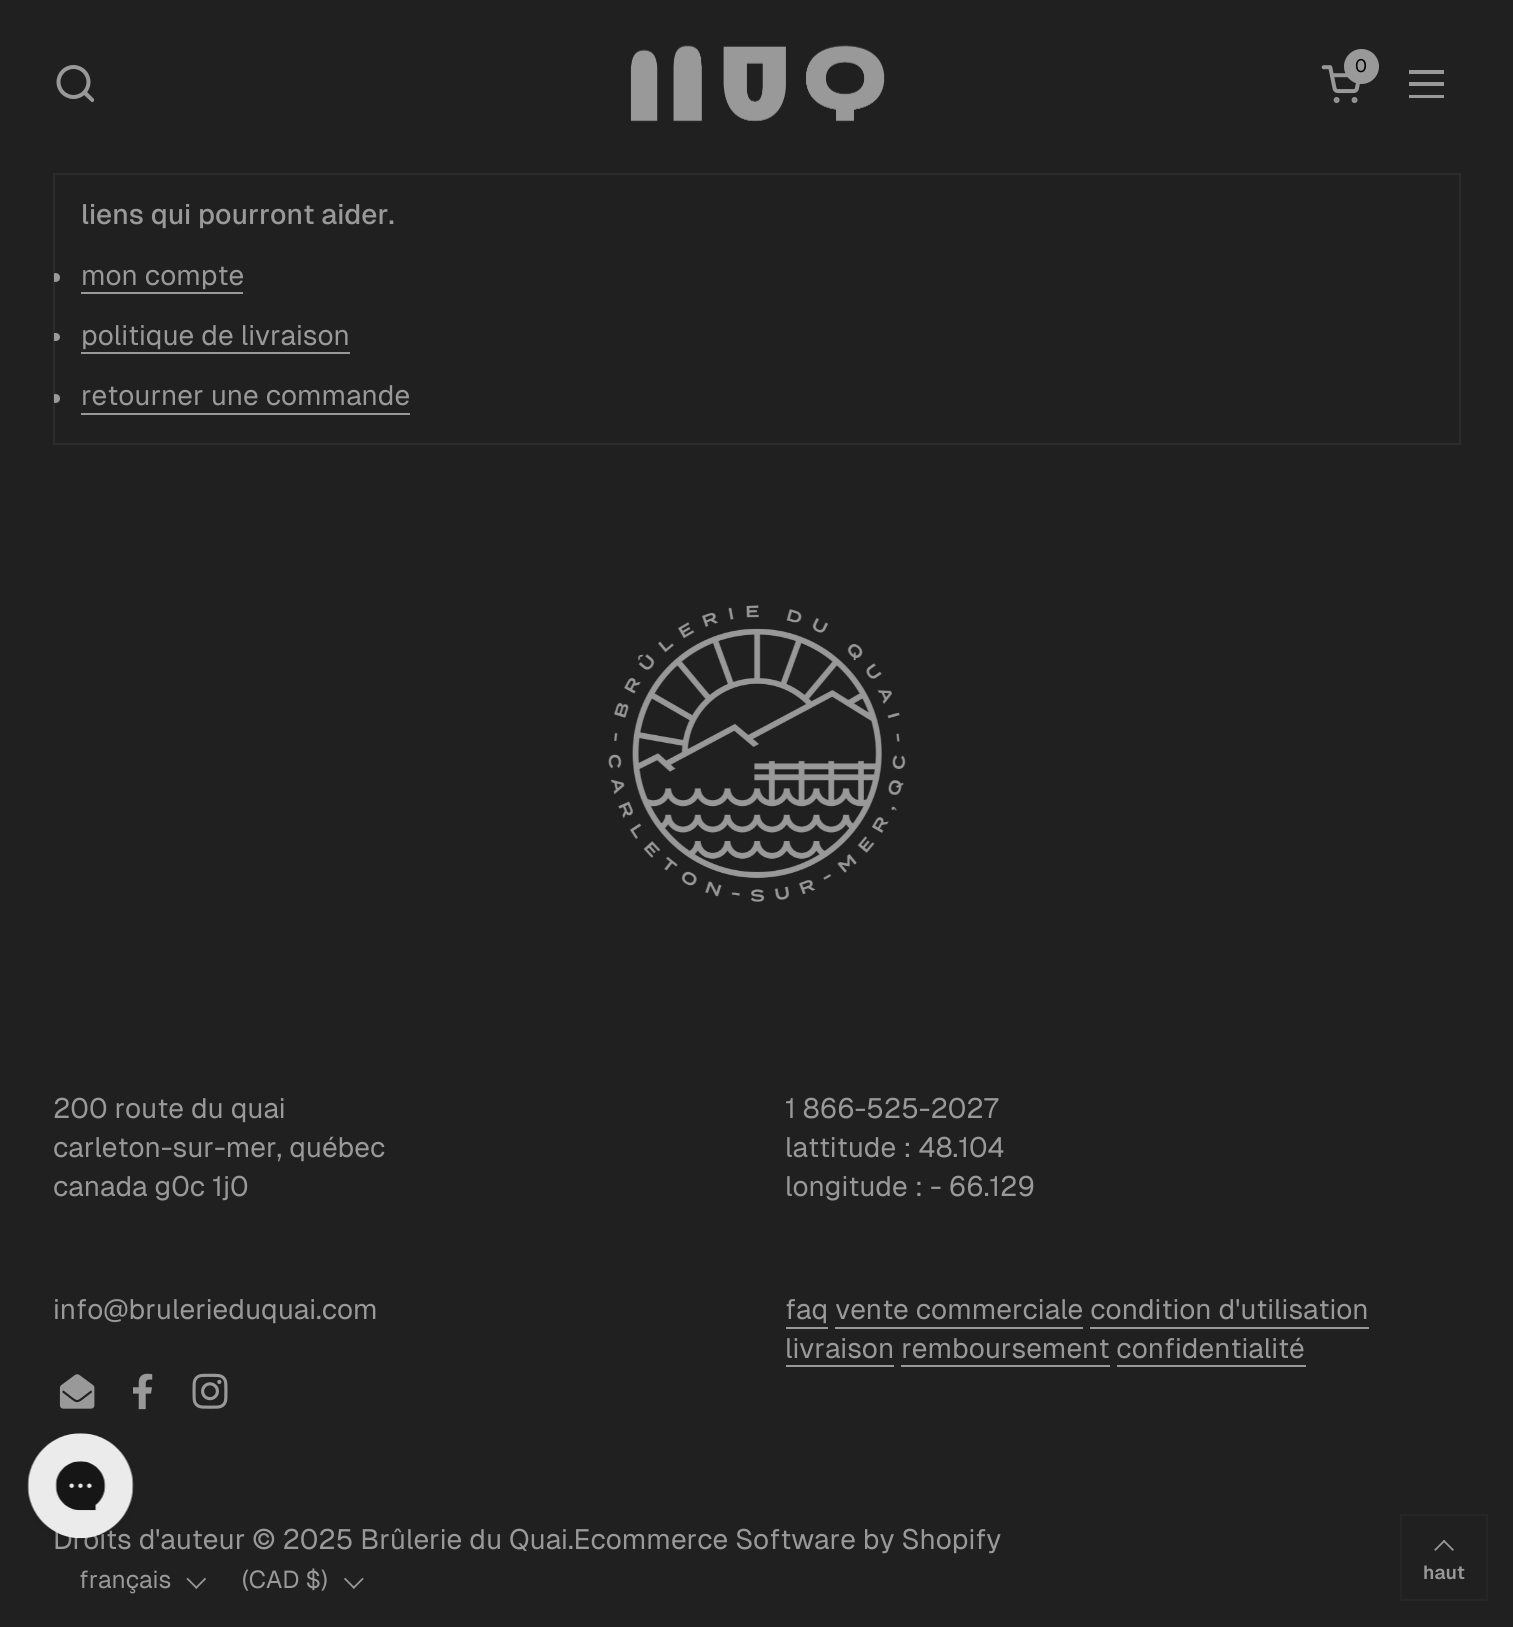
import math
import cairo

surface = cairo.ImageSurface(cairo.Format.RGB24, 1513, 1627)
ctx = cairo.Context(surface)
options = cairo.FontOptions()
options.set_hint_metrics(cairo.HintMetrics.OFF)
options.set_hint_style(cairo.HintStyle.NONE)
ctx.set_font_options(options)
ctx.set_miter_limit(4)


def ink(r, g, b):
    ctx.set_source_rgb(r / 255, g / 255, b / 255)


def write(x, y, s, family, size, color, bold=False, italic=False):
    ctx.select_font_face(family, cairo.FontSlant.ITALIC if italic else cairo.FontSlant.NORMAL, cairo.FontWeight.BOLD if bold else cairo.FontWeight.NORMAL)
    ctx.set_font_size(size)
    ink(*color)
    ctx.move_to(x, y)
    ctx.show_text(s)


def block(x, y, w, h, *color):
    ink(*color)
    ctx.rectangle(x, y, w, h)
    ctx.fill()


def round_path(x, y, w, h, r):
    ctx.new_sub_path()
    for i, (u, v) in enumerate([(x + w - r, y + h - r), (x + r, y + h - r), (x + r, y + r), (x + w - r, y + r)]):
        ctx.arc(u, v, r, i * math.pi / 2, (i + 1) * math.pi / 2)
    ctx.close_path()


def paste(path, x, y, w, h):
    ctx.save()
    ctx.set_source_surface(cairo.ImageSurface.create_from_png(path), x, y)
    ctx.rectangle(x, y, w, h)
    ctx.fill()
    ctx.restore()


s1 = dict(family="Geist", size=18, color=(0, 0, 0))
s2 = dict(family="Geist Medium", size=28, color=(153, 153, 153))
s3 = dict(family="Geist", size=28, color=(153, 153, 153))
s4 = dict(family="Geist", size=24.5, color=(153, 153, 153))
s5 = dict(family="Geist SemiBold", size=19, color=(153, 153, 153))

ink(32, 32, 32)
ctx.paint()
ctx.arc(73.5, 82, 15, 0, 2 * math.pi)
ink(153, 153, 153)
ctx.set_line_width(4)
ctx.stroke()
ctx.new_path()
ctx.move_to(86.5, 91.5)
ctx.line_to(85, 90.5)
ctx.line_to(82.5, 93)
ctx.line_to(83.5, 94.5)
ctx.close_path()
ctx.move_to(91, 101.5)
ctx.curve_to(92.5, 103.5, 95.5, 100.5, 93.5, 98.5)
ctx.close_path()
ctx.move_to(83.5, 94.5)
ctx.line_to(91, 101.5)
ctx.line_to(93.5, 98.5)
ctx.line_to(86.5, 91.5)
ctx.close_path()
ctx.fill()
paste("pic1.png", 630, 45, 255, 77)
ctx.arc(1361.5, 66.5, 17.5, 0, 2 * math.pi)
ctx.fill()
write(1355, 72, "0", **s1)
paste("pic2.png", 1321, 65, 39, 38)
block(1409, 70, 35, 4, 153, 153, 153)
block(1409, 82, 35, 4, 153, 153, 153)
block(1409, 95, 35, 3, 153, 153, 153)
ctx.rectangle(54, 174, 1406, 270)
ink(44, 44, 44)
ctx.set_line_width(2)
ctx.stroke()
write(81, 224, "liens qui pourront aider.", **s2)
ctx.save()
ctx.rectangle(54, 175, 1406, 268)
ctx.clip()
ctx.arc(55.5, 277.5, 4.5, 0, 2 * math.pi)
ctx.fill()
ctx.restore()
write(81, 285, "mon compte", **s3)
block(81, 292, 162, 2, 153, 153, 153)
ctx.save()
ctx.rectangle(54, 175, 1406, 268)
ctx.clip()
round_path(51, 333, 9, 8, 4)
ctx.fill()
ctx.restore()
write(81, 345, "politique de livraison", **s3)
block(81, 352, 269, 2, 153, 153, 153)
ctx.save()
ctx.rectangle(54, 175, 1406, 268)
ctx.clip()
ctx.arc(55.5, 398.5, 4.5, 0, 2 * math.pi)
ctx.fill()
ctx.restore()
write(81, 405, "retourner une commande", **s3)
block(81, 413, 329, 2, 153, 153, 153)
paste("pic3.png", 608, 605, 298, 297)
write(53, 1118, "200 route du quai", **s3)
write(53, 1157, "carleton-sur-mer, québec", **s3)
write(53, 1196, "canada g0c 1j0", **s3)
write(785, 1118, "1 866-525-2027", **s3)
write(785, 1157, "lattitude : 48.104", **s3)
write(785, 1196, "longitude : - 66.129", **s3)
write(53, 1319, "info@brulerieduquai.com", **s3)
paste("pic4.png", 59, 1374, 36, 35)
paste("pic5.png", 133, 1373, 20, 37)
paste("pic6.png", 192, 1373, 36, 36)
write(785, 1319, "faq vente commerciale condition d'utilisation", **s3)
block(786, 1327, 42, 2, 153, 153, 153)
block(835, 1327, 248, 2, 153, 153, 153)
block(1090, 1327, 279, 2, 153, 153, 153)
write(785, 1358, "livraison remboursement confidentialité", **s3)
block(786, 1365, 108, 2, 153, 153, 153)
block(901, 1365, 209, 2, 153, 153, 153)
block(1117, 1365, 189, 2, 153, 153, 153)
write(53, 1549, "Droits d'auteur © 2025 Brûlerie du Quai.Ecommerce Software by Shopify", **s3)
write(79, 1588, "français", **s4)
paste("pic7.png", 186, 1577, 20, 12)
write(242, 1588, "(CAD $)", **s4)
paste("pic8.png", 344, 1577, 20, 12)
paste("pic9.png", 27, 1433, 107, 112)
ctx.rectangle(1401, 1515, 86, 85)
ink(38, 38, 38)
ctx.stroke()
paste("pic10.png", 1434, 1540, 20, 11)
write(1423, 1579, "haut", **s5)
surface.write_to_png("screenshot.png")
